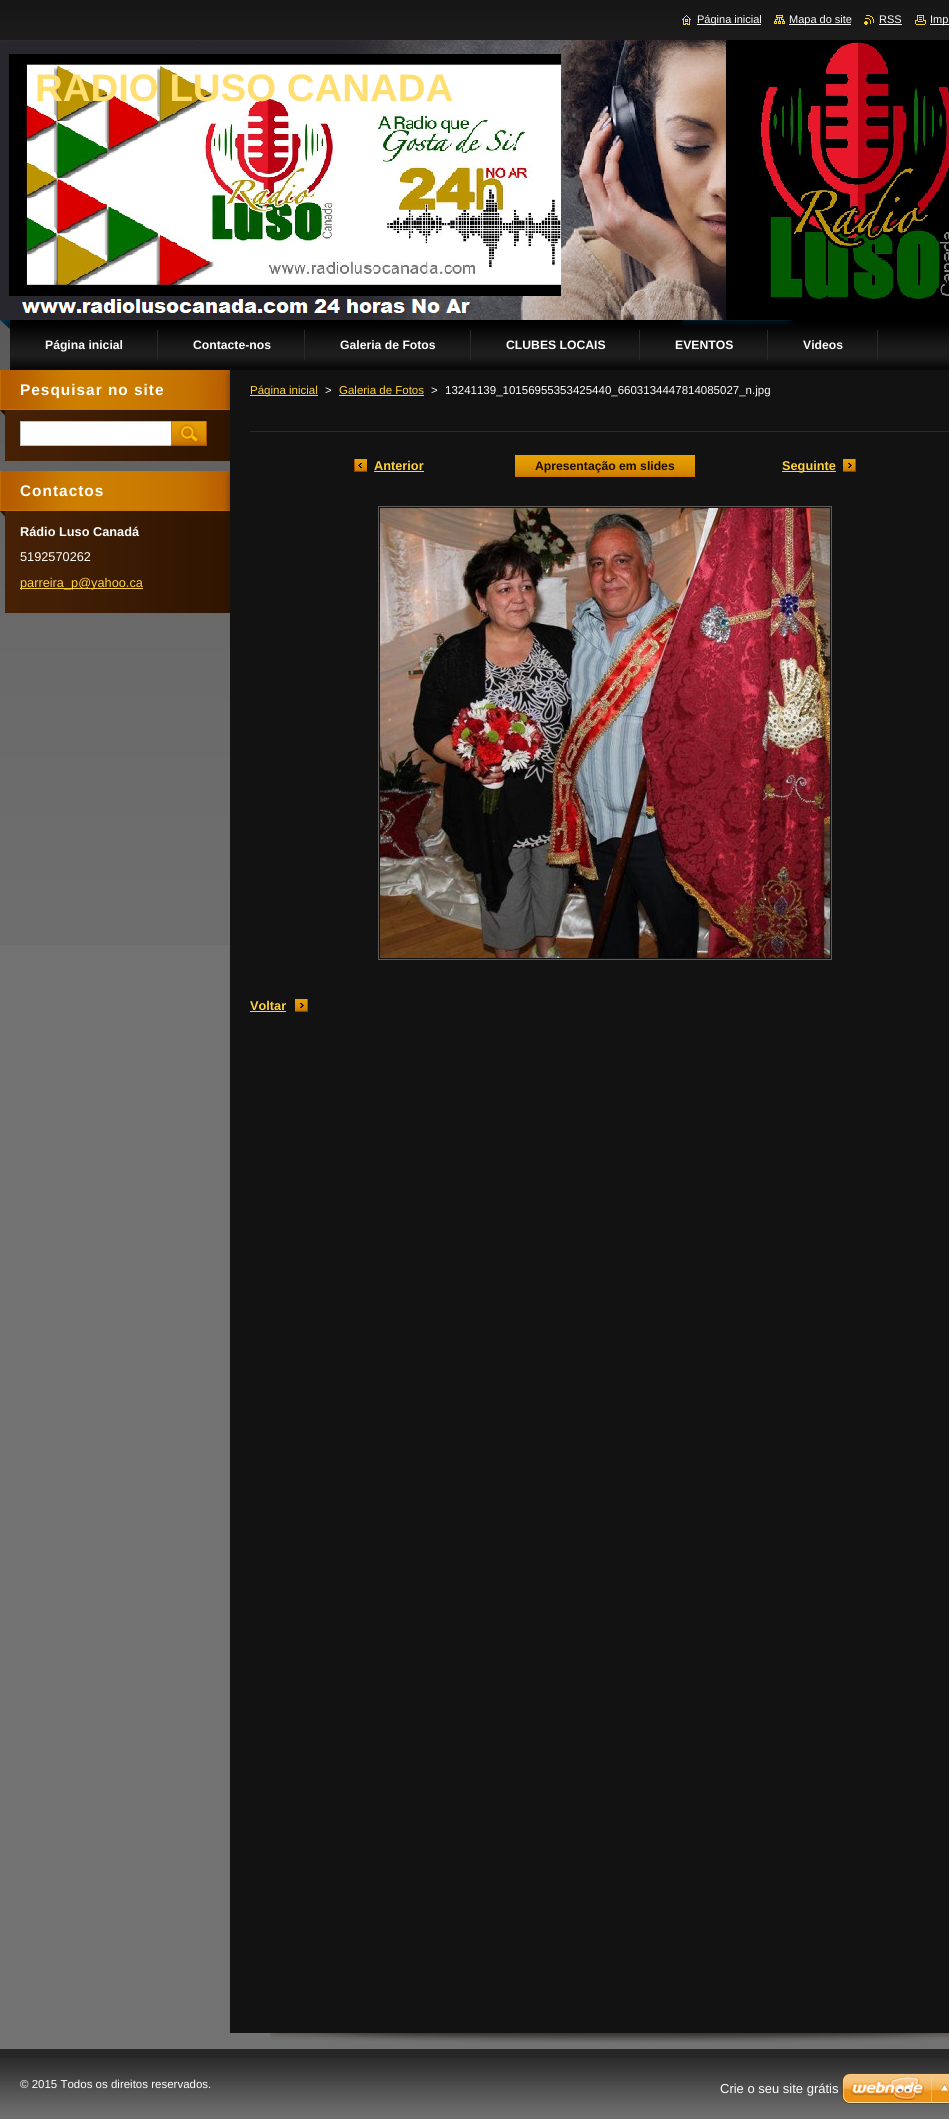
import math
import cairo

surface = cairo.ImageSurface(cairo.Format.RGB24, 949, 2119)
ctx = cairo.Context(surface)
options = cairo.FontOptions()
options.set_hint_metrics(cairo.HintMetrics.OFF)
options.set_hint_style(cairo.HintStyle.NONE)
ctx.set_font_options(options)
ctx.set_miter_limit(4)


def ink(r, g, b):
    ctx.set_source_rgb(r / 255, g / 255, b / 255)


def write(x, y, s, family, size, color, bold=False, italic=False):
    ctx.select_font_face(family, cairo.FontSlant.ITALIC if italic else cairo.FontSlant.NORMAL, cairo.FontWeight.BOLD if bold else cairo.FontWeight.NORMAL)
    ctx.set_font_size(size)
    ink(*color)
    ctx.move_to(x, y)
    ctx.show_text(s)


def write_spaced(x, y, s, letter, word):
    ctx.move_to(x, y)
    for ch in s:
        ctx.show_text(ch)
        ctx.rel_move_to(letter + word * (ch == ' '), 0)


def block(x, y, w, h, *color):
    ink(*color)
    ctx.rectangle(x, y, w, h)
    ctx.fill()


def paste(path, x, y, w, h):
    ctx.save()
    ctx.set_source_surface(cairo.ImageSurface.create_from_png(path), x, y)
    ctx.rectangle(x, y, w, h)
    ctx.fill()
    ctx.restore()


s1 = dict(family="Liberation Sans", size=11, color=(255, 255, 255))
s2 = dict(family="Liberation Sans", size=38.4, color=(255, 223, 113), bold=True)
s3 = dict(family="Liberation Sans", size=12.2, color=(255, 255, 255), bold=True)
s4 = dict(family="Liberation Sans", size=12.75, color=(255, 255, 255), bold=True)
s5 = dict(family="Liberation Sans", size=12.75, color=(255, 255, 255))
s6 = dict(family="Liberation Sans", size=12.75, color=(255, 210, 58))
s7 = dict(family="Liberation Sans", size=11.5, color=(255, 210, 58))
s8 = dict(family="Liberation Sans", size=11.5, color=(255, 255, 255))
s9 = dict(family="Liberation Sans", size=12.75, color=(255, 210, 58), bold=True)
s10 = dict(family="Liberation Sans", size=12.2, color=(28, 12, 0), bold=True)
s11 = dict(family="Liberation Sans", size=13, color=(255, 255, 255))

ink(114, 114, 114)
ctx.paint()
paste("pic1.png", 0, 0, 949, 945)
paste("pic2.png", 682, 15, 9, 10)
block(697, 24, 64, 1, 255, 255, 255)
write(697, 23, "Página inicial", **s1)
paste("pic3.png", 774, 15, 11, 9)
block(789, 24, 62, 1, 255, 255, 255)
write(789, 23, "Mapa do site", **s1)
paste("pic4.png", 864, 15, 10, 10)
write(879, 23, "RSS", **s1)
block(879, 24, 23, 1, 255, 255, 255)
paste("pic5.png", 915, 15, 11, 10)
block(930, 24, 19, 1, 255, 255, 255)
write(930, 23, "Imp", **s1)
paste("pic6.png", 0, 40, 949, 280)
write(35, 101, "RADIO LUSO CANADA", **s2)
paste("pic7.png", 0, 320, 949, 50)
block(157, 330, 1, 30, 42, 42, 42)
write(45, 349, "Página inicial", **s3)
block(304, 330, 1, 30, 42, 42, 42)
write(193, 349, "Contacte-nos", **s3)
block(470, 330, 1, 30, 42, 42, 42)
write(340, 349, "Galeria de Fotos", **s3)
block(639, 330, 1, 30, 42, 42, 42)
write(506, 349, "CLUBES LOCAIS", **s3)
block(767, 330, 1, 30, 42, 42, 42)
write(675, 349, "EVENTOS", **s3)
block(877, 330, 1, 30, 42, 42, 42)
write(803, 349, "Videos", **s3)
paste("pic8.png", 5, 416, 225, 45)
paste("pic9.png", 0, 370, 230, 46)
ctx.set_font_size(15.4)
write_spaced(20, 395, "Pesquisar no site", 1, 0)
ctx.rectangle(20.5, 421.5, 151, 24)
ctx.fill_preserve()
ink(193, 193, 193)
ctx.set_line_width(1)
ctx.stroke()
paste("pic10.png", 171, 421, 36, 25)
paste("pic11.png", 5, 517, 225, 96)
paste("pic12.png", 0, 471, 230, 46)
ink(255, 255, 255)
write_spaced(20, 496, "Contactos", 1, 0)
write(20, 536, "Rádio Luso Canadá", **s4)
write(20, 561, "5192570262", **s5)
block(20, 588, 44, 1, 255, 210, 58)
write(20, 587, "parreira", **s6)
block(64, 588, 79, 1, 255, 210, 58)
write(64, 587, "_p@yahoo.ca", **s6)
paste("pic13.png", 270, 2033, 679, 10)
block(230, 370, 719, 1663, 18, 18, 18)
block(250, 395, 68, 1, 255, 210, 58)
write(250, 394, "Página inicial", **s7)
write(325, 394, ">", **s8)
write(339, 394, "Galeria de Fotos", **s7)
block(339, 395, 85, 1, 255, 210, 58)
write(431, 394, ">", **s8)
write(445, 394, "13241139_10156955353425440_6603134447814085027_n.jpg", **s8)
block(250, 431, 699, 1, 42, 42, 42)
paste("pic14.png", 354, 459, 13, 13)
write(374, 470, "Anterior", **s9)
block(374, 471, 50, 1, 255, 210, 58)
paste("pic15.png", 515, 455, 180, 22)
write(535, 470, "Apresentação em slides", **s10)
paste("pic16.png", 843, 459, 13, 13)
block(782, 471, 54, 1, 255, 210, 58)
write(782, 470, "Seguinte", **s9)
ctx.rectangle(378.5, 506.5, 453, 453)
ink(92, 92, 92)
ctx.stroke()
paste("pic17.png", 380, 508, 450, 450)
paste("pic16.png", 295, 999, 13, 13)
write(250, 1010, "Voltar", **s9)
block(250, 1011, 36, 1, 255, 210, 58)
block(0, 2049, 949, 9, 39, 39, 39)
paste("pic18.png", 0, 2058, 949, 61)
write(20, 2088, "© 2015 Todos os direitos reservados.", **s8)
write(720, 2093, "Crie o seu site grátis", **s11)
paste("pic19.png", 842, 2073, 107, 31)
surface.write_to_png("screenshot.png")
